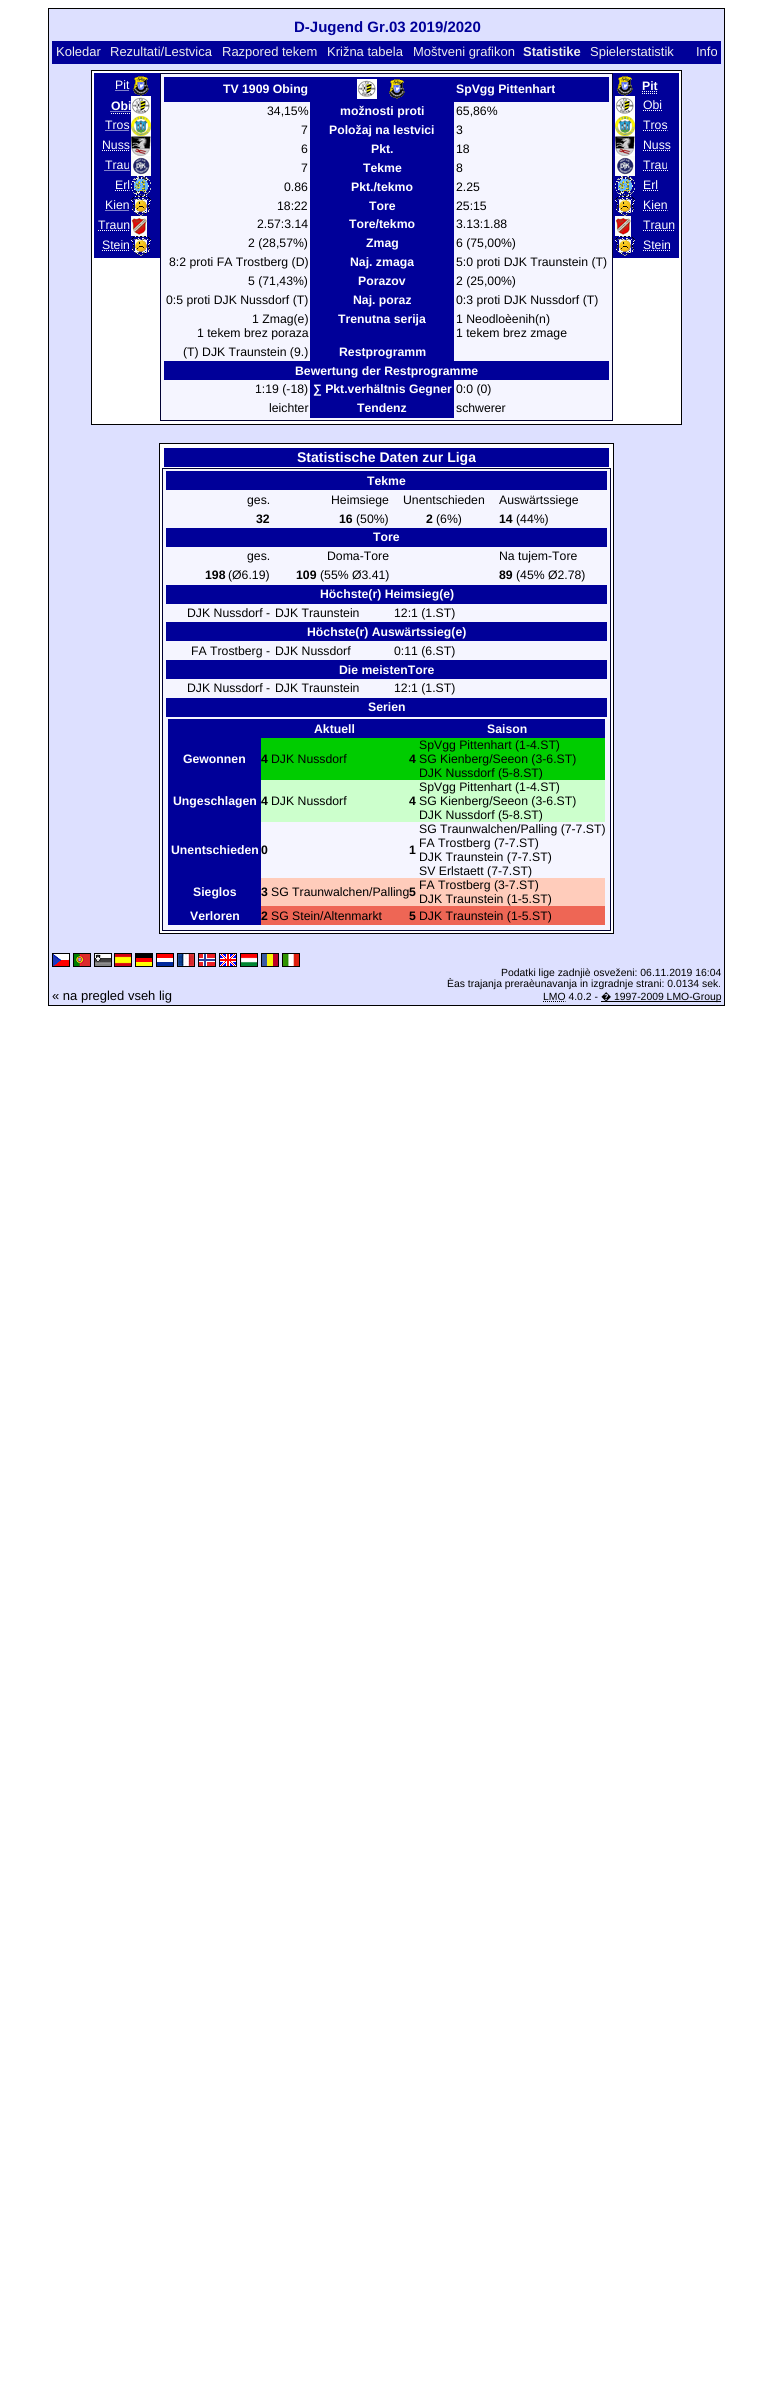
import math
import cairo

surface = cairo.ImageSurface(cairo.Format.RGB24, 773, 2394)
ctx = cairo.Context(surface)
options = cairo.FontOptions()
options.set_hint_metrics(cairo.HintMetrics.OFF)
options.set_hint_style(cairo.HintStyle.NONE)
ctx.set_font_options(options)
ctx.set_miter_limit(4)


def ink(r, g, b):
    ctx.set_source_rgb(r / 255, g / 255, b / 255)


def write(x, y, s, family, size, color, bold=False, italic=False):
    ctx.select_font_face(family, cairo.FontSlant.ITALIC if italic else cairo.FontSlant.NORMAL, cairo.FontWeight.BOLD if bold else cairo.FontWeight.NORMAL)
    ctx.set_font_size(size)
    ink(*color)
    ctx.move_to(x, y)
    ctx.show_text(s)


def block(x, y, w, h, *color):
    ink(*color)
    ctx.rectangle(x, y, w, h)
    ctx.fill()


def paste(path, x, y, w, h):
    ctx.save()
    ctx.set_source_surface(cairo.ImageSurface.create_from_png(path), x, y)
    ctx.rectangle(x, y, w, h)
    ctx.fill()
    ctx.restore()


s1 = dict(family="Liberation Sans", size=15, color=(0, 0, 153), bold=True)
s2 = dict(family="Liberation Sans", size=13, color=(238, 238, 238))
s3 = dict(family="Liberation Sans", size=13, color=(238, 238, 238), bold=True)
s4 = dict(family="Liberation Sans", size=12.25, color=(255, 255, 255))
s5 = dict(family="Liberation Sans", size=12.25, color=(255, 255, 255), bold=True)
s6 = dict(family="Liberation Sans", size=12.25, color=(0, 0, 0))
s7 = dict(family="Liberation Sans", size=14, color=(255, 255, 255), bold=True)
s8 = dict(family="Liberation Sans", size=12.25, color=(0, 0, 0), bold=True)
s9 = dict(family="Liberation Sans", size=13, color=(0, 0, 0))
s10 = dict(family="Liberation Sans", size=10.4, color=(0, 0, 0))
s11 = dict(family="Noto Sans", size=10.4, color=(0, 0, 0))

ink(255, 255, 255)
ctx.paint()
ink(221, 224, 255)
ctx.rectangle(48.5, 8.5, 676, 997)
ctx.fill_preserve()
ink(0, 0, 0)
ctx.set_line_width(1)
ctx.stroke()
write(294, 32, "D-Jugend Gr.03 2019/2020", **s1)
block(52, 41, 669, 23, 0, 0, 153)
write(56, 56, "Koledar", **s2)
write(110, 56, "Rezultati/Lestvica", **s2)
write(222, 56, "Razpored tekem", **s2)
write(327, 56, "Križna tabela", **s2)
write(413, 56, "Moštveni grafikon", **s2)
write(523, 56, "Statistike", **s3)
write(590, 56, "Spielerstatistik", **s2)
write(696, 56, "Info", **s2)
ink(255, 255, 255)
ctx.rectangle(91.5, 70.5, 590, 354)
ctx.fill_preserve()
ink(0, 0, 0)
ctx.stroke()
block(94, 73, 66, 185, 0, 0, 153)
write(115, 89, "Pit", **s4)
ctx.new_path()
ctx.move_to(115.5, 90.5)
ctx.line_to(129.5, 90.5)
ctx.set_dash([1, 1])
ctx.stroke()
paste("pic1.png", 133, 76, 16, 20)
write(111, 110, "Obi", **s5)
ctx.new_path()
ctx.move_to(111, 113.5)
ctx.line_to(131, 113.5)
ctx.move_to(110.5, 111.5)
ctx.line_to(131, 111.5)
ctx.stroke()
paste("pic2.png", 131, 96, 20, 20)
write(105, 129, "Tros", **s4)
ctx.new_path()
ctx.move_to(105.5, 130.5)
ctx.line_to(129.5, 130.5)
ctx.stroke()
paste("pic3.png", 131, 116, 20, 20)
write(102, 149, "Nuss", **s4)
ctx.new_path()
ctx.move_to(102, 150.5)
ctx.line_to(129.5, 150.5)
ctx.stroke()
paste("pic4.png", 131, 136, 20, 20)
write(105, 169, "Trau", **s4)
ctx.new_path()
ctx.move_to(104.5, 170.5)
ctx.line_to(129.5, 170.5)
ctx.stroke()
paste("pic5.png", 131, 156, 20, 20)
write(115, 189, "Erl", **s4)
ctx.new_path()
ctx.move_to(115, 190.5)
ctx.line_to(129.5, 190.5)
ctx.stroke()
paste("pic6.png", 131, 176, 20, 20)
write(105, 209, "Kien", **s4)
ctx.new_path()
ctx.move_to(105.5, 210.5)
ctx.line_to(129.5, 210.5)
ctx.stroke()
paste("pic7.png", 131, 196, 20, 20)
write(98, 229, "Traun", **s4)
ctx.new_path()
ctx.move_to(98, 230.5)
ctx.line_to(129.5, 230.5)
ctx.stroke()
paste("pic8.png", 131, 216, 16, 20)
write(102, 249, "Stein", **s4)
ctx.new_path()
ctx.move_to(102, 250.5)
ctx.line_to(129.5, 250.5)
ctx.stroke()
paste("pic7.png", 131, 236, 20, 20)
ink(245, 245, 255)
ctx.rectangle(160.5, 73.5, 452, 347)
ctx.fill_preserve()
ink(0, 0, 51)
ctx.set_dash([])
ctx.stroke()
block(164, 77, 445, 25, 0, 0, 153)
write(223, 93, "TV 1909 Obing", **s5)
paste("pic2.png", 357, 79, 20, 20)
paste("pic1.png", 389, 79, 16, 20)
write(456, 93, "SpVgg Pittenhart", **s5)
write(267, 115, "34,15%", **s6)
block(310, 102, 144, 259, 0, 0, 153)
write(340, 115, "možnosti proti", **s5)
write(456, 115, "65,86%", **s6)
write(301, 134, "7", **s6)
write(329, 134, "Položaj na lestvici", **s5)
write(456, 134, "3", **s6)
write(301, 153, "6", **s6)
write(371, 153, "Pkt.", **s5)
write(456, 153, "18", **s6)
write(301, 172, "7", **s6)
write(363, 172, "Tekme", **s5)
write(456, 172, "8", **s6)
write(284, 191, "0.86", **s6)
write(351, 191, "Pkt./tekmo", **s5)
write(456, 191, "2.25", **s6)
write(277, 210, "18:22", **s6)
write(369, 210, "Tore", **s5)
write(456, 210, "25:15", **s6)
write(257, 228, "2.57:3.14", **s6)
write(349, 228, "Tore/tekmo", **s5)
write(456, 228, "3.13:1.88", **s6)
write(248, 247, "2 (28,57%)", **s6)
write(366, 247, "Zmag", **s5)
write(456, 247, "6 (75,00%)", **s6)
write(169, 266, "8:2 proti FA Trostberg (D)", **s6)
write(350, 266, "Naj. zmaga", **s5)
write(456, 266, "5:0 proti DJK Traunstein (T)", **s6)
write(248, 285, "5 (71,43%)", **s6)
write(358, 285, "Porazov", **s5)
write(456, 285, "2 (25,00%)", **s6)
write(166, 304, "0:5 proti DJK Nussdorf (T)", **s6)
write(353, 304, "Naj. poraz", **s5)
write(456, 304, "0:3 proti DJK Nussdorf (T)", **s6)
write(252, 323, "1 Zmag(e)", **s6)
write(197, 337, "1 tekem brez poraza", **s6)
write(338, 323, "Trenutna serija", **s5)
write(456, 323, "1 Neodloèenih(n)", **s6)
write(456, 337, "1 tekem brez zmage", **s6)
write(183, 356, "(T) DJK Traunstein (9.)", **s6)
write(339, 356, "Restprogramm", **s5)
block(164, 361, 445, 19, 0, 0, 153)
write(295, 375, "Bewertung der Restprogramme", **s5)
write(255, 393, "1:19 (-18)", **s6)
block(310, 380, 144, 38, 0, 0, 153)
write(313, 393, "∑ Pkt.verhältnis Gegner", **s5)
write(456, 393, "0:0 (0)", **s6)
write(269, 412, "leichter", **s6)
write(357, 412, "Tendenz", **s5)
write(456, 412, "schwerer", **s6)
block(613, 73, 66, 185, 0, 0, 153)
paste("pic1.png", 617, 76, 16, 20)
write(642, 90, "Pit", **s5)
ctx.new_path()
ctx.move_to(642, 93.5)
ctx.line_to(658, 93.5)
ctx.move_to(642, 91.5)
ctx.line_to(657.5, 91.5)
ctx.set_dash([1, 1])
ctx.stroke()
paste("pic2.png", 615, 96, 20, 20)
write(643, 109, "Obi", **s4)
ctx.new_path()
ctx.move_to(643, 110.5)
ctx.line_to(662, 110.5)
ctx.stroke()
paste("pic3.png", 615, 116, 20, 20)
write(643, 129, "Tros", **s4)
ctx.new_path()
ctx.move_to(643, 130.5)
ctx.line_to(667.5, 130.5)
ctx.stroke()
paste("pic4.png", 615, 136, 20, 20)
write(643, 149, "Nuss", **s4)
ctx.new_path()
ctx.move_to(643, 150.5)
ctx.line_to(671, 150.5)
ctx.stroke()
paste("pic5.png", 615, 156, 20, 20)
write(643, 169, "Trau", **s4)
ctx.new_path()
ctx.move_to(643, 170.5)
ctx.line_to(668.5, 170.5)
ctx.stroke()
paste("pic6.png", 615, 176, 20, 20)
write(643, 189, "Erl", **s4)
ctx.new_path()
ctx.move_to(643, 190.5)
ctx.line_to(658, 190.5)
ctx.stroke()
paste("pic7.png", 615, 196, 20, 20)
write(643, 209, "Kien", **s4)
ctx.new_path()
ctx.move_to(643, 210.5)
ctx.line_to(667.5, 210.5)
ctx.stroke()
paste("pic8.png", 615, 216, 16, 20)
write(643, 229, "Traun", **s4)
ctx.new_path()
ctx.move_to(643, 230.5)
ctx.line_to(675, 230.5)
ctx.stroke()
paste("pic7.png", 615, 236, 20, 20)
write(643, 249, "Stein", **s4)
ctx.new_path()
ctx.move_to(643, 250.5)
ctx.line_to(671, 250.5)
ctx.stroke()
ctx.rectangle(159.5, 443.5, 454, 490)
ctx.fill_preserve()
ink(0, 0, 0)
ctx.set_dash([])
ctx.stroke()
block(164, 448, 445, 19, 0, 0, 153)
write(297, 462, "Statistische Daten zur Liga", **s7)
ink(245, 245, 255)
ctx.rectangle(162.5, 468.5, 448, 462)
ctx.fill_preserve()
ink(0, 0, 51)
ctx.stroke()
block(166, 471, 441, 19, 0, 0, 153)
write(367, 485, "Tekme", **s5)
write(247, 504, "ges.", **s6)
write(331, 504, "Heimsiege", **s6)
write(403, 504, "Unentschieden", **s6)
write(499, 504, "Auswärtssiege", **s6)
write(256, 523, "32", **s8)
write(339, 523, "16", **s8)
write(356, 523, "(50%)", **s6)
write(426, 523, "2", **s8)
write(436, 523, "(6%)", **s6)
write(499, 523, "14", **s8)
write(516, 523, "(44%)", **s6)
block(166, 528, 441, 19, 0, 0, 153)
write(373, 541, "Tore", **s5)
write(247, 560, "ges.", **s6)
write(327, 560, "Doma-Tore", **s6)
write(499, 560, "Na tujem-Tore", **s6)
write(205, 579, "198", **s8)
write(228, 579, "(Ø6.19)", **s6)
write(296, 579, "109", **s8)
write(320, 579, "(55% Ø3.41)", **s6)
write(499, 579, "89", **s8)
write(516, 579, "(45% Ø2.78)", **s6)
block(166, 585, 441, 19, 0, 0, 153)
write(320, 598, "Höchste(r) Heimsieg(e)", **s5)
write(187, 617, "DJK Nussdorf -", **s6)
write(275, 617, "DJK Traunstein", **s6)
write(394, 617, "12:1 (1.ST)", **s6)
block(166, 622, 441, 19, 0, 0, 153)
write(307, 636, "Höchste(r) Auswärtssieg(e)", **s5)
write(191, 655, "FA Trostberg -", **s6)
write(275, 655, "DJK Nussdorf", **s6)
write(394, 655, "0:11 (6.ST)", **s6)
block(166, 660, 441, 19, 0, 0, 153)
write(339, 674, "Die meistenTore", **s5)
write(187, 692, "DJK Nussdorf -", **s6)
write(275, 692, "DJK Traunstein", **s6)
write(394, 692, "12:1 (1.ST)", **s6)
block(166, 698, 441, 19, 0, 0, 153)
write(368, 711, "Serien", **s5)
block(168, 719, 437, 19, 0, 0, 153)
write(314, 733, "Aktuell", **s5)
write(487, 733, "Saison", **s5)
block(168, 738, 93, 187, 0, 0, 153)
write(183, 763, "Gewonnen", **s5)
block(261, 738, 344, 42, 0, 204, 0)
write(261, 763, "4", **s8)
write(271, 763, "DJK Nussdorf", **s6)
write(409, 763, "4", **s8)
write(419, 749, "SpVgg Pittenhart (1-4.ST)", **s6)
write(419, 763, "SG Kienberg/Seeon (3-6.ST)", **s6)
write(419, 777, "DJK Nussdorf (5-8.ST)", **s6)
write(173, 805, "Ungeschlagen", **s5)
block(261, 780, 344, 42, 204, 255, 204)
write(261, 805, "4", **s8)
write(271, 805, "DJK Nussdorf", **s6)
write(409, 805, "4", **s8)
write(419, 791, "SpVgg Pittenhart (1-4.ST)", **s6)
write(419, 805, "SG Kienberg/Seeon (3-6.ST)", **s6)
write(419, 819, "DJK Nussdorf (5-8.ST)", **s6)
write(171, 854, "Unentschieden", **s5)
write(261, 854, "0", **s8)
write(409, 854, "1", **s8)
write(419, 833, "SG Traunwalchen/Palling (7-7.ST)", **s6)
write(419, 847, "FA Trostberg (7-7.ST)", **s6)
write(419, 861, "DJK Traunstein (7-7.ST)", **s6)
write(419, 875, "SV Erlstaett (7-7.ST)", **s6)
write(193, 896, "Sieglos", **s5)
block(261, 878, 344, 28, 255, 204, 187)
write(261, 896, "3", **s8)
write(271, 896, "SG Traunwalchen/Palling", **s6)
write(409, 896, "5", **s8)
write(419, 889, "FA Trostberg (3-7.ST)", **s6)
write(419, 903, "DJK Traunstein (1-5.ST)", **s6)
write(190, 920, "Verloren", **s5)
block(261, 906, 344, 19, 238, 102, 85)
write(261, 920, "2", **s8)
write(271, 920, "SG Stein/Altenmarkt", **s6)
write(409, 920, "5", **s8)
write(419, 920, "DJK Traunstein (1-5.ST)", **s6)
ctx.rectangle(52.5, 953.5, 17, 13)
ctx.stroke()
ctx.rectangle(73.5, 953.5, 17, 13)
ctx.stroke()
ctx.rectangle(94.5, 953.5, 17, 13)
ctx.stroke()
ctx.rectangle(114.5, 953.5, 17, 13)
ctx.stroke()
ctx.rectangle(135.5, 953.5, 17, 13)
ctx.stroke()
ctx.rectangle(156.5, 953.5, 17, 13)
ctx.stroke()
ctx.rectangle(177.5, 953.5, 17, 13)
ctx.stroke()
ctx.rectangle(198.5, 953.5, 17, 13)
ctx.stroke()
ctx.rectangle(219.5, 953.5, 17, 13)
ctx.stroke()
ctx.rectangle(240.5, 953.5, 17, 13)
ctx.stroke()
ctx.rectangle(261.5, 953.5, 17, 13)
ctx.stroke()
ctx.rectangle(282.5, 953.5, 17, 13)
ctx.stroke()
paste("pic9.png", 53, 954, 16, 12)
paste("pic10.png", 74, 954, 16, 12)
paste("pic11.png", 95, 954, 16, 12)
paste("pic12.png", 115, 954, 16, 12)
paste("pic13.png", 136, 954, 16, 12)
paste("pic14.png", 157, 954, 16, 12)
paste("pic15.png", 178, 954, 16, 12)
paste("pic16.png", 199, 954, 16, 12)
paste("pic17.png", 220, 954, 16, 12)
paste("pic18.png", 241, 954, 16, 12)
paste("pic19.png", 262, 954, 16, 12)
paste("pic20.png", 283, 954, 16, 12)
write(52, 1000, "« na pregled vseh lig", **s9)
write(501, 976, "Podatki lige zadnjiè osveženi: 06.11.2019 16:04", **s10)
write(447, 987, "Èas trajanja preraèunavanja in izgradnje strani: 0.0134 sek.", **s10)
write(543, 1000, "LMO 4.0.2 -", **s10)
ctx.new_path()
ctx.move_to(543, 1001.5)
ctx.line_to(565.5, 1001.5)
ctx.set_dash([1, 1])
ctx.stroke()
block(601, 1001, 120, 1, 0, 0, 0)
write(601, 1000, "�", **s11)
write(614, 1000, "1997-2009 LMO-Group", **s10)
surface.write_to_png("screenshot.png")
